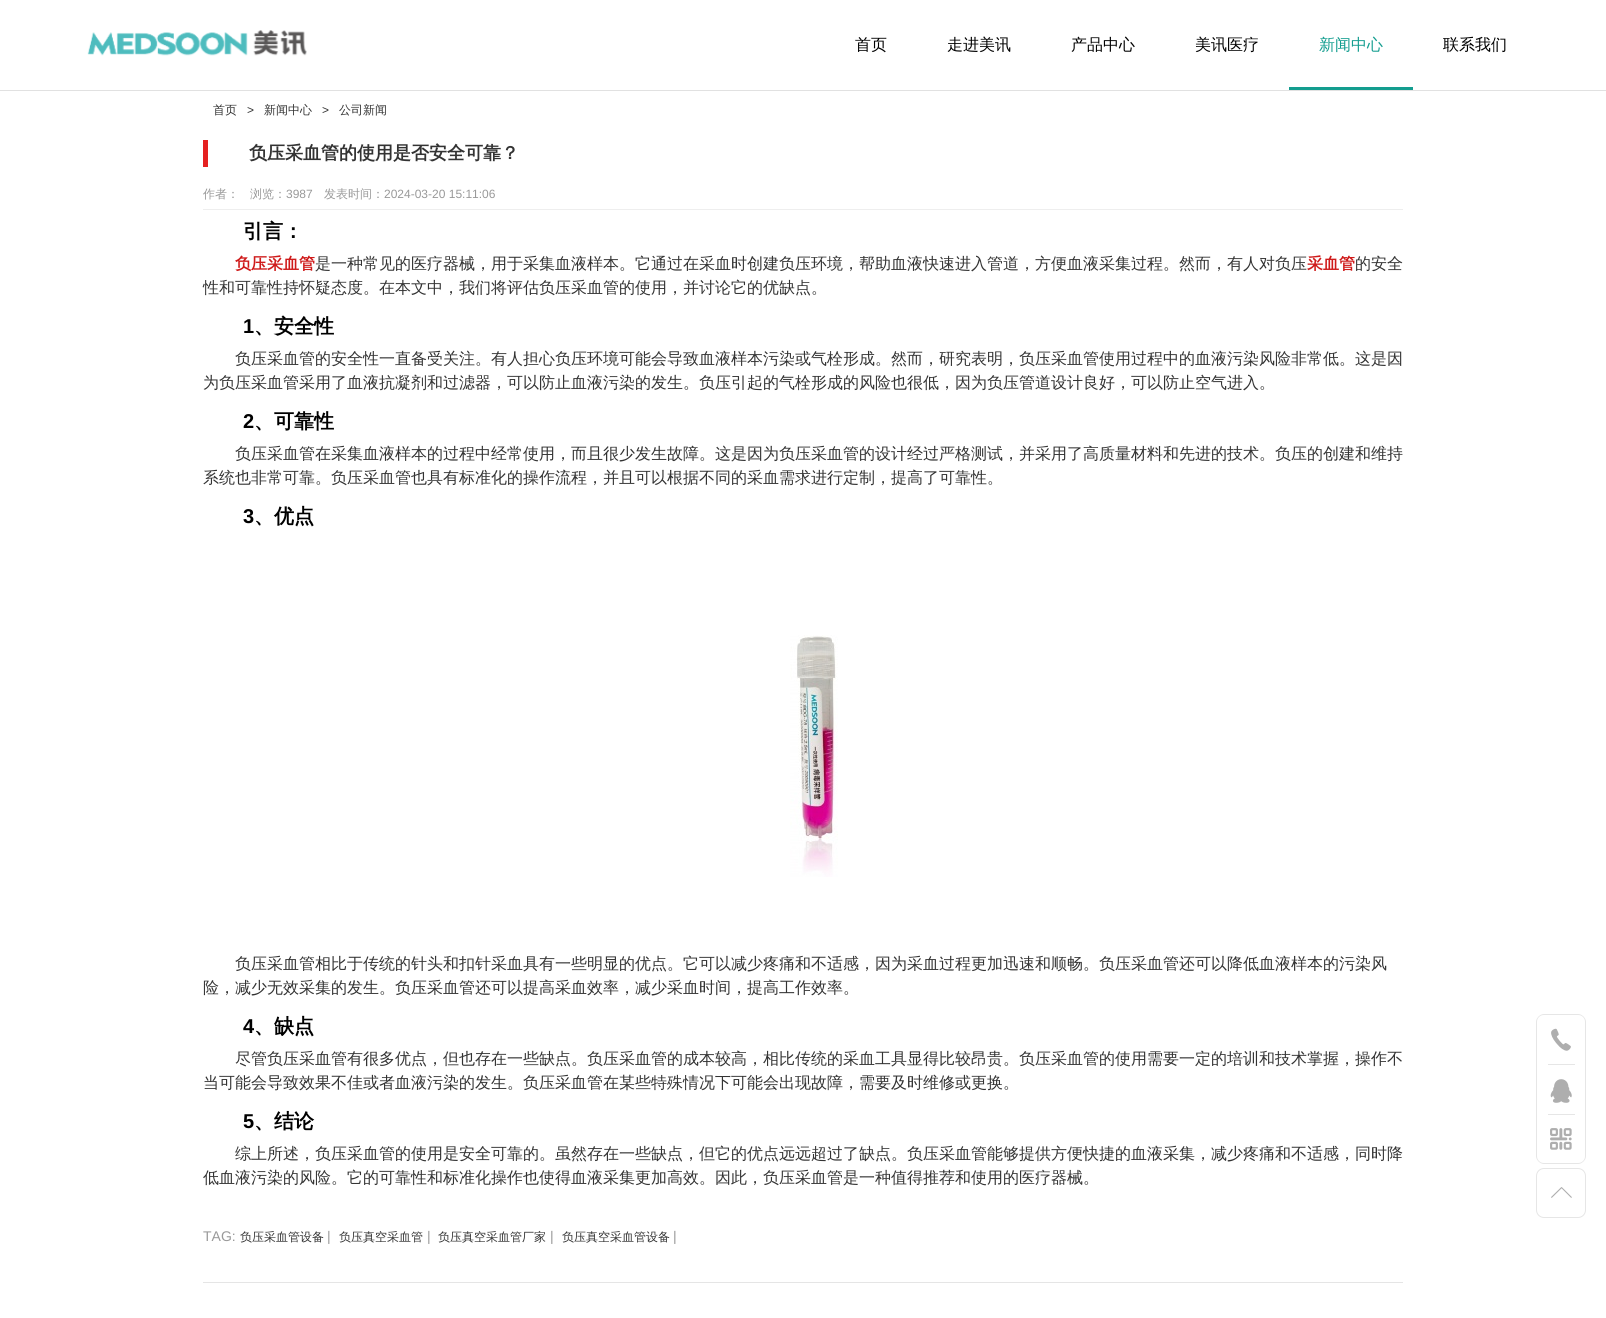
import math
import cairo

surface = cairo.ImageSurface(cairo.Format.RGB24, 1606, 1318)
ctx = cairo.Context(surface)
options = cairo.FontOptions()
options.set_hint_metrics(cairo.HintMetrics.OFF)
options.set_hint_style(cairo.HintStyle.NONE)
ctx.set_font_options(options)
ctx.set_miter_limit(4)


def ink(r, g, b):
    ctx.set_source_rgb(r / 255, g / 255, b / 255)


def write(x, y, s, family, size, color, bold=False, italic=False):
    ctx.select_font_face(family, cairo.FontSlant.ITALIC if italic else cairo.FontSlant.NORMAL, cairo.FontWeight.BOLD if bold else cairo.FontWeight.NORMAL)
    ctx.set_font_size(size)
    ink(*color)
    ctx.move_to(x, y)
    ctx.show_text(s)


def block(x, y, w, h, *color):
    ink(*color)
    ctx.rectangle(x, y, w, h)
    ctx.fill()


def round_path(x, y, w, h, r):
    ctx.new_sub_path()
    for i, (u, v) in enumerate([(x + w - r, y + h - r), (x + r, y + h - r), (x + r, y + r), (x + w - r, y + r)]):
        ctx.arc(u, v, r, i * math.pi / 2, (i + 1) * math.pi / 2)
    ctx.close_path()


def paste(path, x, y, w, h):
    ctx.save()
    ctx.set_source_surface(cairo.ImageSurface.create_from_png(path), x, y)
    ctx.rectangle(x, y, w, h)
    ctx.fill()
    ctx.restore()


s1 = dict(family="WenQuanYi Zen Hei Medium", size=16, color=(0, 0, 0))
s2 = dict(family="WenQuanYi Zen Hei Medium", size=16, color=(19, 157, 143))
s3 = dict(family="WenQuanYi Zen Hei Medium", size=12, color=(51, 51, 51))
s4 = dict(family="Liberation Sans", size=12, color=(51, 51, 51))
s5 = dict(family="WenQuanYi Zen Hei", size=18, color=(51, 51, 51), bold=True)
s6 = dict(family="WenQuanYi Zen Hei Medium", size=12, color=(153, 153, 153))
s7 = dict(family="Liberation Sans", size=12, color=(153, 153, 153))
s8 = dict(family="WenQuanYi Zen Hei", size=20, color=(0, 0, 0), bold=True)
s9 = dict(family="WenQuanYi Zen Hei", size=16, color=(207, 27, 27), bold=True)
s10 = dict(family="WenQuanYi Zen Hei Medium", size=16, color=(51, 51, 51))
s11 = dict(family="Liberation Sans", size=20, color=(0, 0, 0), bold=True)
s12 = dict(family="Liberation Sans", size=14, color=(153, 153, 153))

ink(255, 255, 255)
ctx.paint()
block(0, 90, 1606, 1, 225, 225, 225)
paste("pic1.png", 87, 30, 220, 26)
write(855, 50, "首页", **s1)
write(947, 50, "走进美讯", **s1)
write(1071, 50, "产品中心", **s1)
write(1195, 50, "美讯医疗", **s1)
write(1319, 50, "新闻中心", **s2)
block(1289, 87, 124, 3, 19, 157, 143)
write(1443, 50, "联系我们", **s1)
write(213, 114, "首页", **s3)
write(247, 114, ">", **s4)
write(264, 114, "新闻中心", **s3)
write(322, 114, ">", **s4)
write(339, 114, "公司新闻", **s3)
block(203, 140, 5, 27, 229, 33, 33)
write(249, 159, "负压采血管的使用是否安全可靠？", **s5)
block(203, 209, 1200, 1, 238, 238, 238)
write(203, 198, "作者：", **s6)
write(250, 198, "浏览：", **s6)
write(286, 198, "3987", **s7)
write(324, 198, "发表时间：", **s6)
write(384, 198, "2024-03-20 15:11:06", **s7)
write(243, 238, "引言：", **s8)
write(235, 269, "负压采血管", **s9)
write(315, 269, "是一种常见的医疗器械，用于采集血液样本。它通过在采血时创建负压环境，帮助血液快速进入管道，方便血液采集过程。然而，有人对负压", **s10)
write(1307, 269, "采血管", **s9)
write(1355, 269, "的安全", **s10)
write(203, 293, "性和可靠性持怀疑态度。在本文中，我们将评估负压采血管的使用，并讨论它的优缺点。", **s10)
write(243, 333, "1", **s11)
write(254, 333, "、安全性", **s8)
write(235, 364, "负压采血管的安全性一直备受关注。有人担心负压环境可能会导致血液样本污染或气栓形成。然而，研究表明，负压采血管使用过程中的血液污染风险非常低。这是因", **s10)
write(203, 388, "为负压采血管采用了血液抗凝剂和过滤器，可以防止血液污染的发生。负压引起的气栓形成的风险也很低，因为负压管道设计良好，可以防止空气进入。", **s10)
write(243, 428, "2", **s11)
write(254, 428, "、可靠性", **s8)
write(235, 459, "负压采血管在采集血液样本的过程中经常使用，而且很少发生故障。这是因为负压采血管的设计经过严格测试，并采用了高质量材料和先进的技术。负压的创建和维持", **s10)
write(203, 483, "系统也非常可靠。负压采血管也具有标准化的操作流程，并且可以根据不同的采血需求进行定制，提高了可靠性。", **s10)
write(243, 523, "3", **s11)
write(254, 523, "、优点", **s8)
paste("pic2.png", 790, 635, 48, 242)
write(235, 969, "负压采血管相比于传统的针头和扣针采血具有一些明显的优点。它可以减少疼痛和不适感，因为采血过程更加迅速和顺畅。负压采血管还可以降低血液样本的污染风", **s10)
write(203, 993, "险，减少无效采集的发生。负压采血管还可以提高采血效率，减少采血时间，提高工作效率。", **s10)
write(243, 1033, "4", **s11)
write(254, 1033, "、缺点", **s8)
write(235, 1064, "尽管负压采血管有很多优点，但也存在一些缺点。负压采血管的成本较高，相比传统的采血工具显得比较昂贵。负压采血管的使用需要一定的培训和技术掌握，操作不", **s10)
write(203, 1088, "当可能会导致效果不佳或者血液污染的发生。负压采血管在某些特殊情况下可能会出现故障，需要及时维修或更换。", **s10)
write(243, 1128, "5", **s11)
write(254, 1128, "、结论", **s8)
write(235, 1159, "综上所述，负压采血管的使用是安全可靠的。虽然存在一些缺点，但它的优点远远超过了缺点。负压采血管能够提供方便快捷的血液采集，减少疼痛和不适感，同时降", **s10)
write(203, 1183, "低血液污染的风险。它的可靠性和标准化操作也使得血液采集更加高效。因此，负压采血管是一种值得推荐和使用的医疗器械。", **s10)
write(203, 1241, "TAG:", **s12)
write(240, 1241, "负压采血管设备", **s3)
write(327, 1241, "|", **s12)
write(339, 1241, "负压真空采血管", **s3)
write(427, 1241, "|", **s12)
write(438, 1241, "负压真空采血管厂家", **s3)
write(550, 1241, "|", **s12)
write(562, 1241, "负压真空采血管设备", **s3)
write(673, 1241, "|", **s12)
block(203, 1282, 1200, 1, 229, 229, 229)
ink(230, 230, 230)
ctx.set_fill_rule(cairo.FillRule.EVEN_ODD)
ctx.new_path()
ctx.move_to(1544, 1014)
ctx.line_to(1578, 1014)
ctx.curve_to(1582, 1014, 1586, 1018, 1586, 1022)
ctx.line_to(1586, 1064)
ctx.line_to(1536, 1064)
ctx.line_to(1536, 1022)
ctx.curve_to(1536, 1018, 1540, 1014, 1544, 1014)
ctx.close_path()
ctx.move_to(1544, 1015)
ctx.line_to(1578, 1015)
ctx.curve_to(1582, 1015, 1585, 1018, 1585, 1022)
ctx.line_to(1585, 1064)
ctx.line_to(1537, 1064)
ctx.line_to(1537, 1022)
ctx.curve_to(1537, 1018, 1540, 1015, 1544, 1015)
ctx.close_path()
ctx.fill()
paste("pic3.png", 1551, 1028, 20, 23)
block(1585, 1064, 1, 50, 230, 230, 230)
block(1536, 1064, 1, 50, 230, 230, 230)
block(1548, 1064, 27, 1, 230, 230, 230)
paste("pic4.png", 1550, 1079, 22, 24)
ctx.new_path()
ctx.move_to(1536, 1114)
ctx.line_to(1586, 1114)
ctx.line_to(1586, 1156)
ctx.curve_to(1586, 1160, 1582, 1164, 1578, 1164)
ctx.line_to(1544, 1164)
ctx.curve_to(1540, 1164, 1536, 1160, 1536, 1156)
ctx.close_path()
ctx.move_to(1537, 1114)
ctx.line_to(1585, 1114)
ctx.line_to(1585, 1156)
ctx.curve_to(1585, 1160, 1582, 1163, 1578, 1163)
ctx.line_to(1544, 1163)
ctx.curve_to(1540, 1163, 1537, 1160, 1537, 1156)
ctx.close_path()
ctx.fill()
block(1548, 1114, 27, 1, 230, 230, 230)
paste("pic5.png", 1550, 1128, 22, 22)
round_path(1536.5, 1168.5, 49, 49, 7.5)
ctx.set_line_width(1)
ctx.stroke()
paste("pic6.png", 1551, 1187, 21, 11)
surface.write_to_png("screenshot.png")
